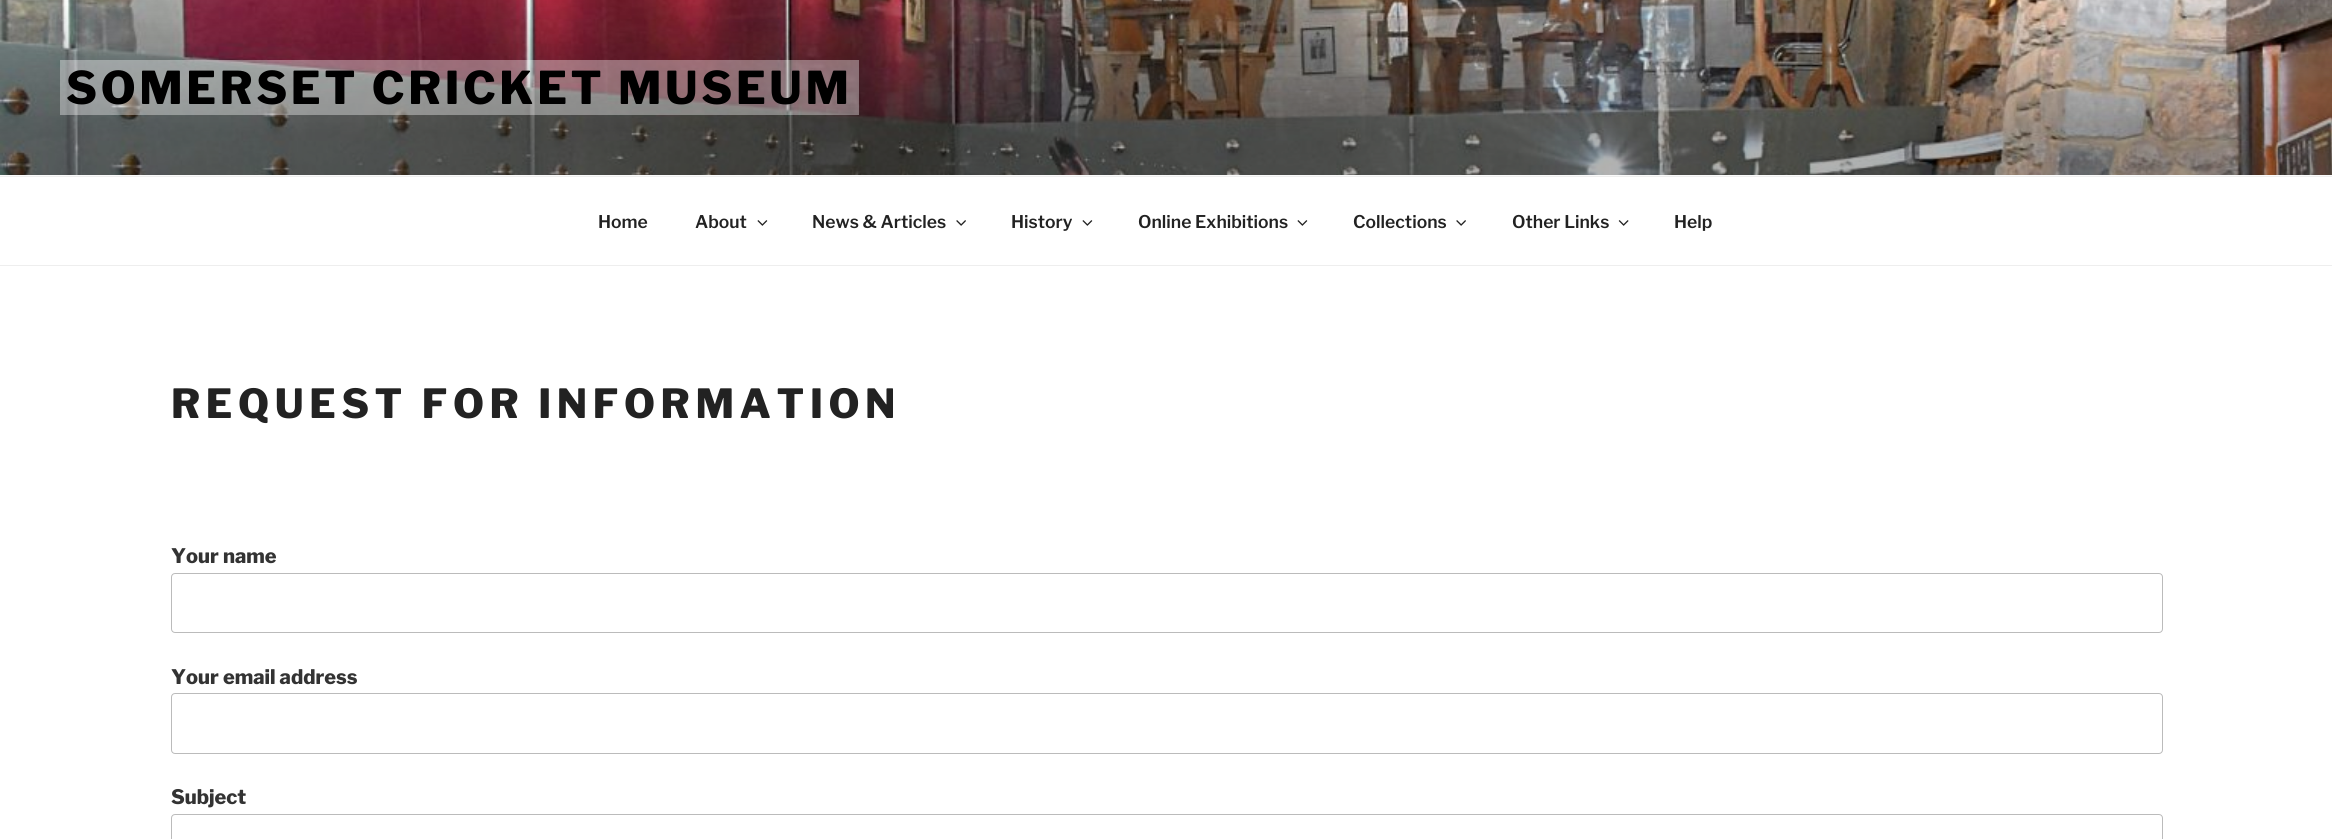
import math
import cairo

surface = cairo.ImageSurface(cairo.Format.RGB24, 2332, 839)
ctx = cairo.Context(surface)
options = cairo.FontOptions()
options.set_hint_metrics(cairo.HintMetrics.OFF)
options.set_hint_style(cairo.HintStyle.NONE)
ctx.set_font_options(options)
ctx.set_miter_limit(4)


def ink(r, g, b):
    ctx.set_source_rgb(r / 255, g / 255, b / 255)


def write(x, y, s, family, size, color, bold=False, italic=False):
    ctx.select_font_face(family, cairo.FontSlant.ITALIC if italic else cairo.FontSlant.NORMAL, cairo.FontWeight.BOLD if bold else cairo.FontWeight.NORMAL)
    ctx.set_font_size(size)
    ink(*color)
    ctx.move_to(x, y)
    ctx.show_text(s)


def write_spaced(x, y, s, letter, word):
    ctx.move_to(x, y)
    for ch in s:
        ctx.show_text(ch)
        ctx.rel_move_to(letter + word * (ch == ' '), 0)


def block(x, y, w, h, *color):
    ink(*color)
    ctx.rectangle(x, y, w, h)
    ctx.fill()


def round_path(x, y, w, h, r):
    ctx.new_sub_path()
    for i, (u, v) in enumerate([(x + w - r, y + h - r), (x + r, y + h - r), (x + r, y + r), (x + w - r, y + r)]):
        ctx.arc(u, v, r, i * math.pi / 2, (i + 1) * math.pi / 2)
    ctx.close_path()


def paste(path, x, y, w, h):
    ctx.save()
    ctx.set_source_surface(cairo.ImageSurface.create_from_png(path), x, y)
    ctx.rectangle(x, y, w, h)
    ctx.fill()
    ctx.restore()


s1 = dict(family="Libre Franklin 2 Thin", size=17.5, color=(34, 34, 34))
s2 = dict(family="Libre Franklin Thin", size=20, color=(51, 51, 51))

ink(255, 255, 255)
ctx.paint()
block(0, 175, 2332, 1, 250, 250, 250)
paste("pic1.png", 0, 0, 2332, 175)
ctx.set_source_rgba(1, 1, 1, 0.37)
ctx.rectangle(60, 60, 799, 55)
ctx.fill()
ctx.select_font_face("Libre Franklin Thin")
ctx.set_font_size(45)
ink(0, 0, 0)
write_spaced(66, 104, "SOMERSET CRICKET MUSEUM", 3.6, 0)
block(0, 176, 2332, 1, 238, 238, 238)
block(0, 265, 2332, 1, 238, 238, 238)
write(598, 228, "Home", **s1)
write(695, 228, "About", **s1)
paste("pic2.png", 757, 220, 11, 6)
write(812, 228, "News & Articles", **s1)
paste("pic3.png", 956, 220, 10, 6)
write(1011, 228, "History", **s1)
paste("pic2.png", 1082, 220, 11, 6)
write(1138, 228, "Online Exhibitions", **s1)
paste("pic2.png", 1297, 220, 11, 6)
write(1353, 228, "Collections", **s1)
paste("pic3.png", 1456, 220, 10, 6)
write(1512, 228, "Other Links", **s1)
paste("pic4.png", 1618, 220, 11, 6)
write(1674, 228, "Help", **s1)
ctx.select_font_face("Libre Franklin Thin")
ctx.set_font_size(40)
write_spaced(171, 418, "REQUEST FOR INFORMATION", 5.6, 0)
write(171, 563, "Your name", **s2)
round_path(171.5, 573.5, 1991, 59, 3.5)
ink(187, 187, 187)
ctx.set_line_width(1)
ctx.stroke()
write(171, 684, "Your email address", **s2)
round_path(171.5, 693.5, 1991, 60, 3.5)
ink(187, 187, 187)
ctx.stroke()
write(171, 804, "Subject", **s2)
round_path(171.5, 814.5, 1991, 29, 3.5)
ink(187, 187, 187)
ctx.stroke()
surface.write_to_png("screenshot.png")
